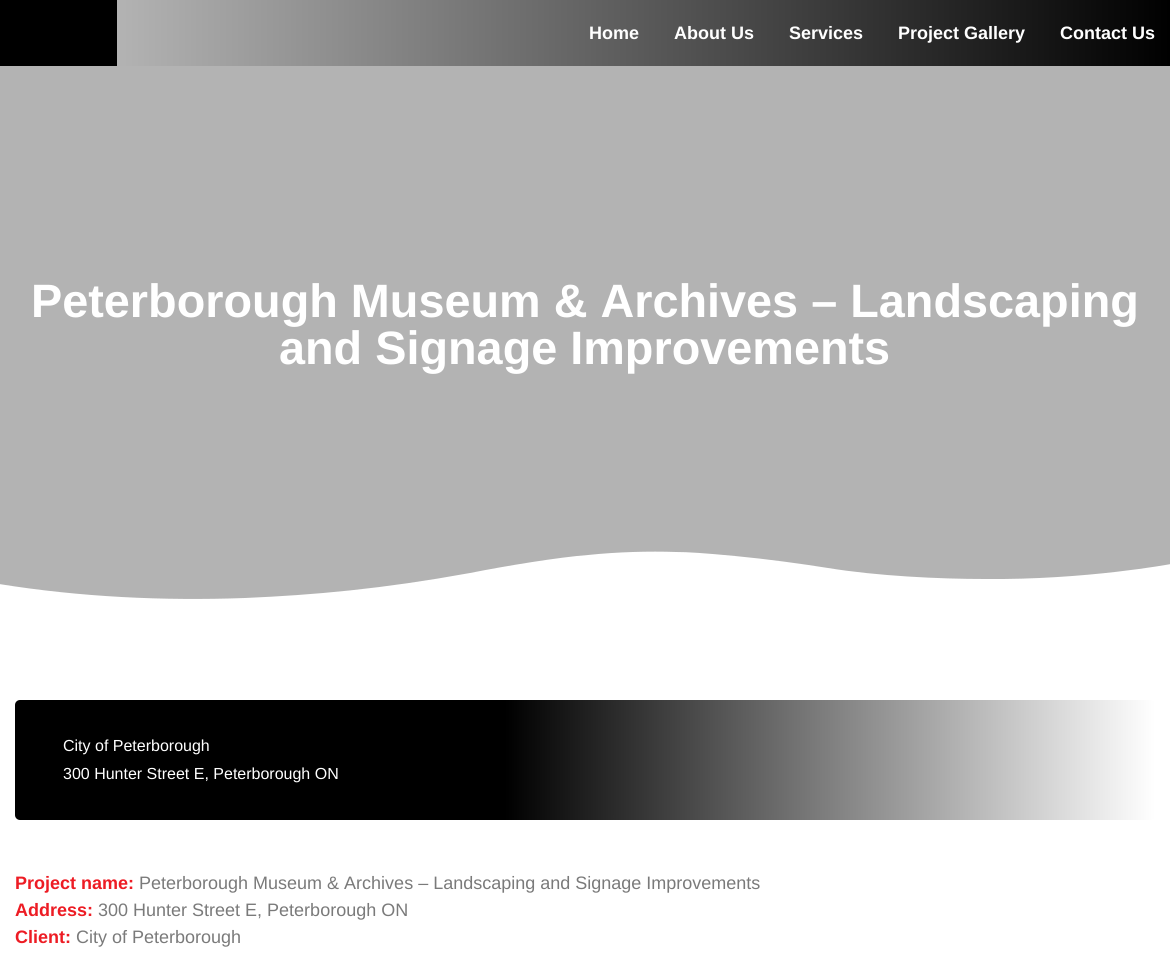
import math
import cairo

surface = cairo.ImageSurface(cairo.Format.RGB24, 1170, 959)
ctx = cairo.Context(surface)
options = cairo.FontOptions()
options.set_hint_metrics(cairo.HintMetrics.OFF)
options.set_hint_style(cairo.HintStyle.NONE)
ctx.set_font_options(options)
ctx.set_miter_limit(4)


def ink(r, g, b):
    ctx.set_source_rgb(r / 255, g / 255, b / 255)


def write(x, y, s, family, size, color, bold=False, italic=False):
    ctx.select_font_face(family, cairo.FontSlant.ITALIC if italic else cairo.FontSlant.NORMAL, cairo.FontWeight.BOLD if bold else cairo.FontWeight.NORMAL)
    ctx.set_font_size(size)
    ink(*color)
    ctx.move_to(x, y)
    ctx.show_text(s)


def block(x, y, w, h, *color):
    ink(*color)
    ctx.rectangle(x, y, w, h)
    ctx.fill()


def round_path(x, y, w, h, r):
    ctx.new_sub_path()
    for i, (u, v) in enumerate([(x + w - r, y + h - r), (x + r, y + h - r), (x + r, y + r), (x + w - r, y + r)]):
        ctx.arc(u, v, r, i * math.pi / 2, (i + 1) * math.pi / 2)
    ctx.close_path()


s1 = dict(family="Liberation Sans", size=18, color=(255, 255, 255), bold=True)
s2 = dict(family="Liberation Sans", size=46.8, color=(255, 255, 255), bold=True)
s3 = dict(family="Liberation Sans", size=16, color=(255, 255, 255))
s4 = dict(family="Liberation Sans", size=18, color=(237, 28, 36), bold=True)
s5 = dict(family="Liberation Sans", size=18, color=(122, 122, 122))

ink(255, 255, 255)
ctx.paint()
block(0, 0, 117, 66, 0, 0, 0)
gradient = cairo.LinearGradient(117, 33, 1170, 33)
gradient.add_color_stop_rgba(0, 0.702, 0.702, 0.702, 1)
gradient.add_color_stop_rgba(1, 0, 0, 0, 1)
ctx.set_source(gradient)
ctx.rectangle(117, 0, 1053, 66)
ctx.fill()
write(589, 39, "Home", **s1)
write(674, 39, "About Us", **s1)
write(789, 39, "Services", **s1)
write(898, 39, "Project Gallery", **s1)
write(1060, 39, "Contact Us", **s1)
block(0, 66, 1170, 533, 179, 179, 179)
write(31, 317, "Peterborough Museum & Archives – Landscaping", **s2)
write(279, 364, "and Signage Improvements", **s2)
ctx.new_path()
ctx.move_to(245, 598)
ctx.curve_to(314, 595, 382, 589, 470, 573)
ctx.curve_to(505, 566, 560, 557, 588, 555)
ctx.curve_to(616, 552, 650, 551, 676, 552)
ctx.curve_to(688, 552, 703, 553, 735, 556)
ctx.curve_to(767, 559, 803, 564, 828, 568)
ctx.curve_to(877, 576, 939, 579, 985, 579)
ctx.curve_to(1086, 580, 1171, 564, 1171, 564)
ctx.line_to(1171, 601)
ctx.line_to(-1, 601)
ctx.line_to(-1, 584)
ctx.curve_to(80, 597, 163, 601, 245, 598)
ctx.close_path()
ctx.fill()
gradient = cairo.LinearGradient(15, 760, 1155, 760)
gradient.add_color_stop_rgba(0.43, 0, 0, 0, 1)
gradient.add_color_stop_rgba(1, 1, 1, 1, 1)
ctx.set_source(gradient)
round_path(15, 700, 1140, 120, 5)
ctx.fill()
write(63, 751, "City of Peterborough", **s3)
write(63, 779, "300 Hunter Street E, Peterborough ON", **s3)
write(15, 889, "Project name:", **s4)
write(139, 889, "Peterborough Museum & Archives – Landscaping and Signage Improvements", **s5)
write(15, 916, "Address:", **s4)
write(98, 916, "300 Hunter Street E, Peterborough ON", **s5)
write(15, 943, "Client:", **s4)
write(76, 943, "City of Peterborough", **s5)
surface.write_to_png("screenshot.png")
